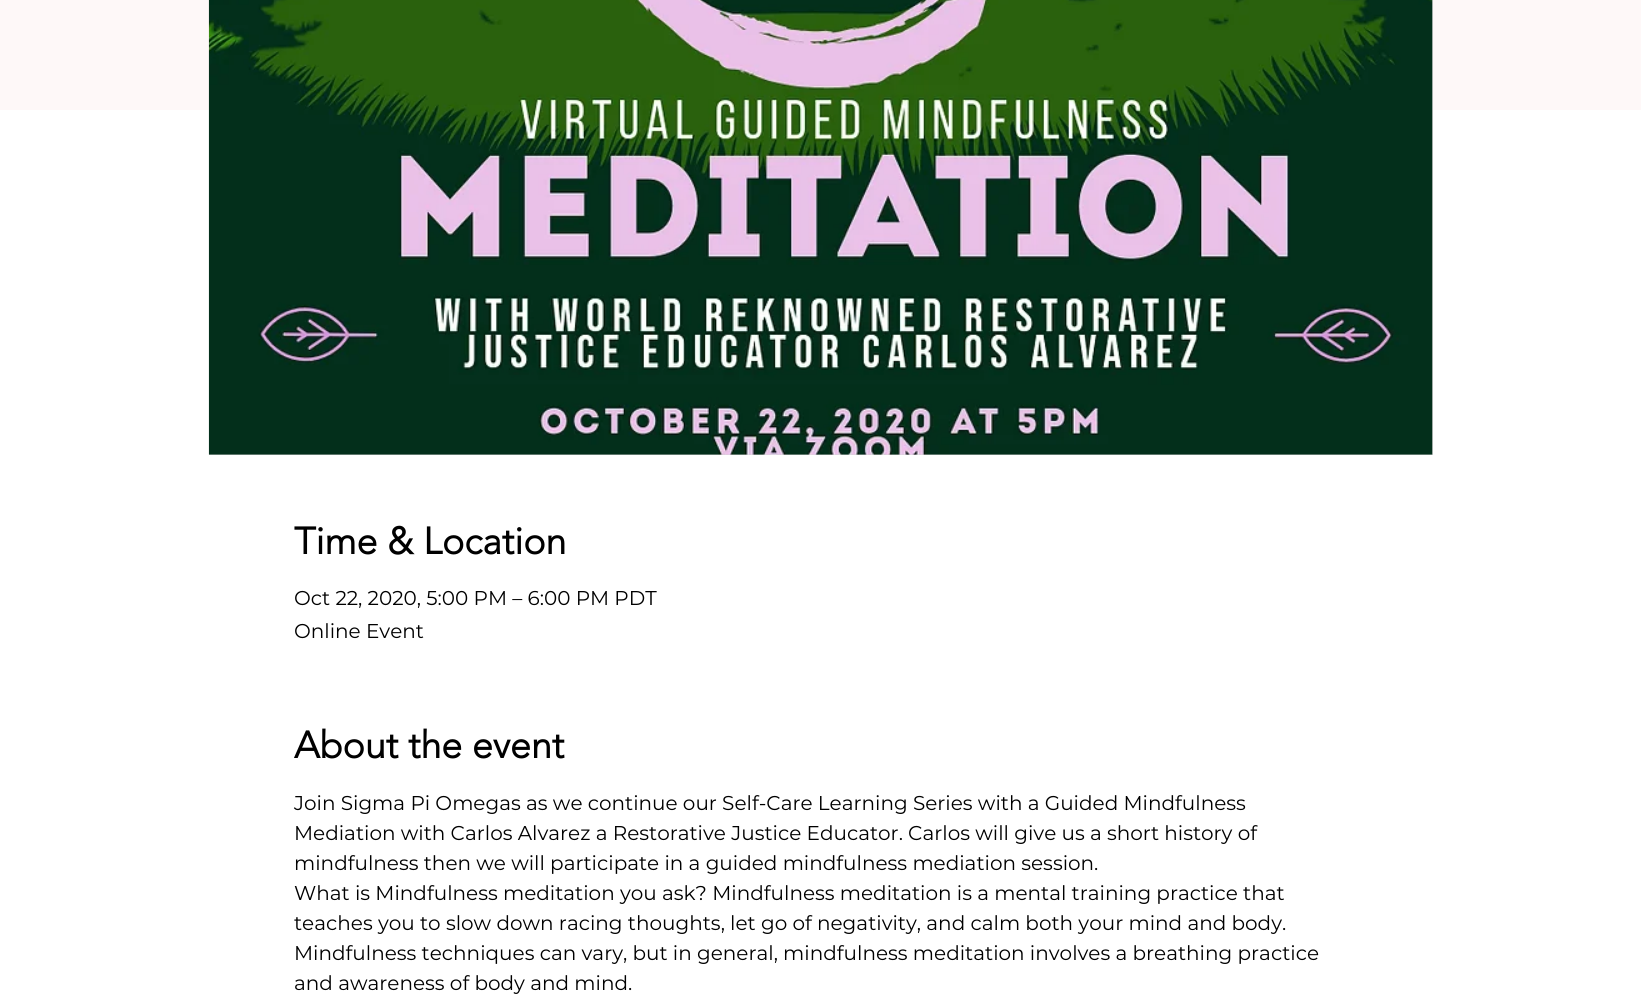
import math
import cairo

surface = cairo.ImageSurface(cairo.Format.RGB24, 1641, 999)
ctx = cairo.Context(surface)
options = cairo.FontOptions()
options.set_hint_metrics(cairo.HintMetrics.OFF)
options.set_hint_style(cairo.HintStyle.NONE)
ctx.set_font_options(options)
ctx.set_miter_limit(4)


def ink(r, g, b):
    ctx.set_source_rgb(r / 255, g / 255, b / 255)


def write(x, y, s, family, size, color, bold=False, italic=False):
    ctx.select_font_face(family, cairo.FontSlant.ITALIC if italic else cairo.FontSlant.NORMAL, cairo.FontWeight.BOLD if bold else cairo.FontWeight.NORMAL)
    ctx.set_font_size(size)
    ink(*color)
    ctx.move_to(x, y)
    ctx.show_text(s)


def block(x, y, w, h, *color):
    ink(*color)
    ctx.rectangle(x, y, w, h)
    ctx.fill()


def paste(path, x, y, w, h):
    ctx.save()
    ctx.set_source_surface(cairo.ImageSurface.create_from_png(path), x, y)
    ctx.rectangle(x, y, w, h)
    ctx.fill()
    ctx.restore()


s1 = dict(family="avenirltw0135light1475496", size=37.5, color=(0, 0, 0), bold=True)
s2 = dict(family="Montserrat", size=20, color=(0, 0, 0))

ink(255, 255, 255)
ctx.paint()
block(0, 0, 1641, 110, 254, 248, 248)
block(209, 0, 1224, 455, 214, 214, 214)
paste("pic1.png", 208, 0, 1225, 455)
write(294, 554, "Time & Location", **s1)
write(294, 605, "Oct 22, 2020, 5:00 PM – 6:00 PM PDT", **s2)
write(294, 638, "Online Event", **s2)
write(294, 758, "About the event", **s1)
write(294, 810, "Join Sigma Pi Omegas as we continue our Self-Care Learning Series with a Guided Mindfulness", **s2)
write(294, 840, "Mediation with Carlos Alvarez a Restorative Justice Educator. Carlos will give us a short history of", **s2)
write(294, 870, "mindfulness then we will participate in a guided mindfulness mediation session.", **s2)
write(294, 900, "What is Mindfulness meditation you ask? Mindfulness meditation is a mental training practice that", **s2)
write(294, 930, "teaches you to slow down racing thoughts, let go of negativity, and calm both your mind and body.", **s2)
write(294, 960, "Mindfulness techniques can vary, but in general, mindfulness meditation involves a breathing practice", **s2)
write(294, 990, "and awareness of body and mind.", **s2)
surface.write_to_png("screenshot.png")
